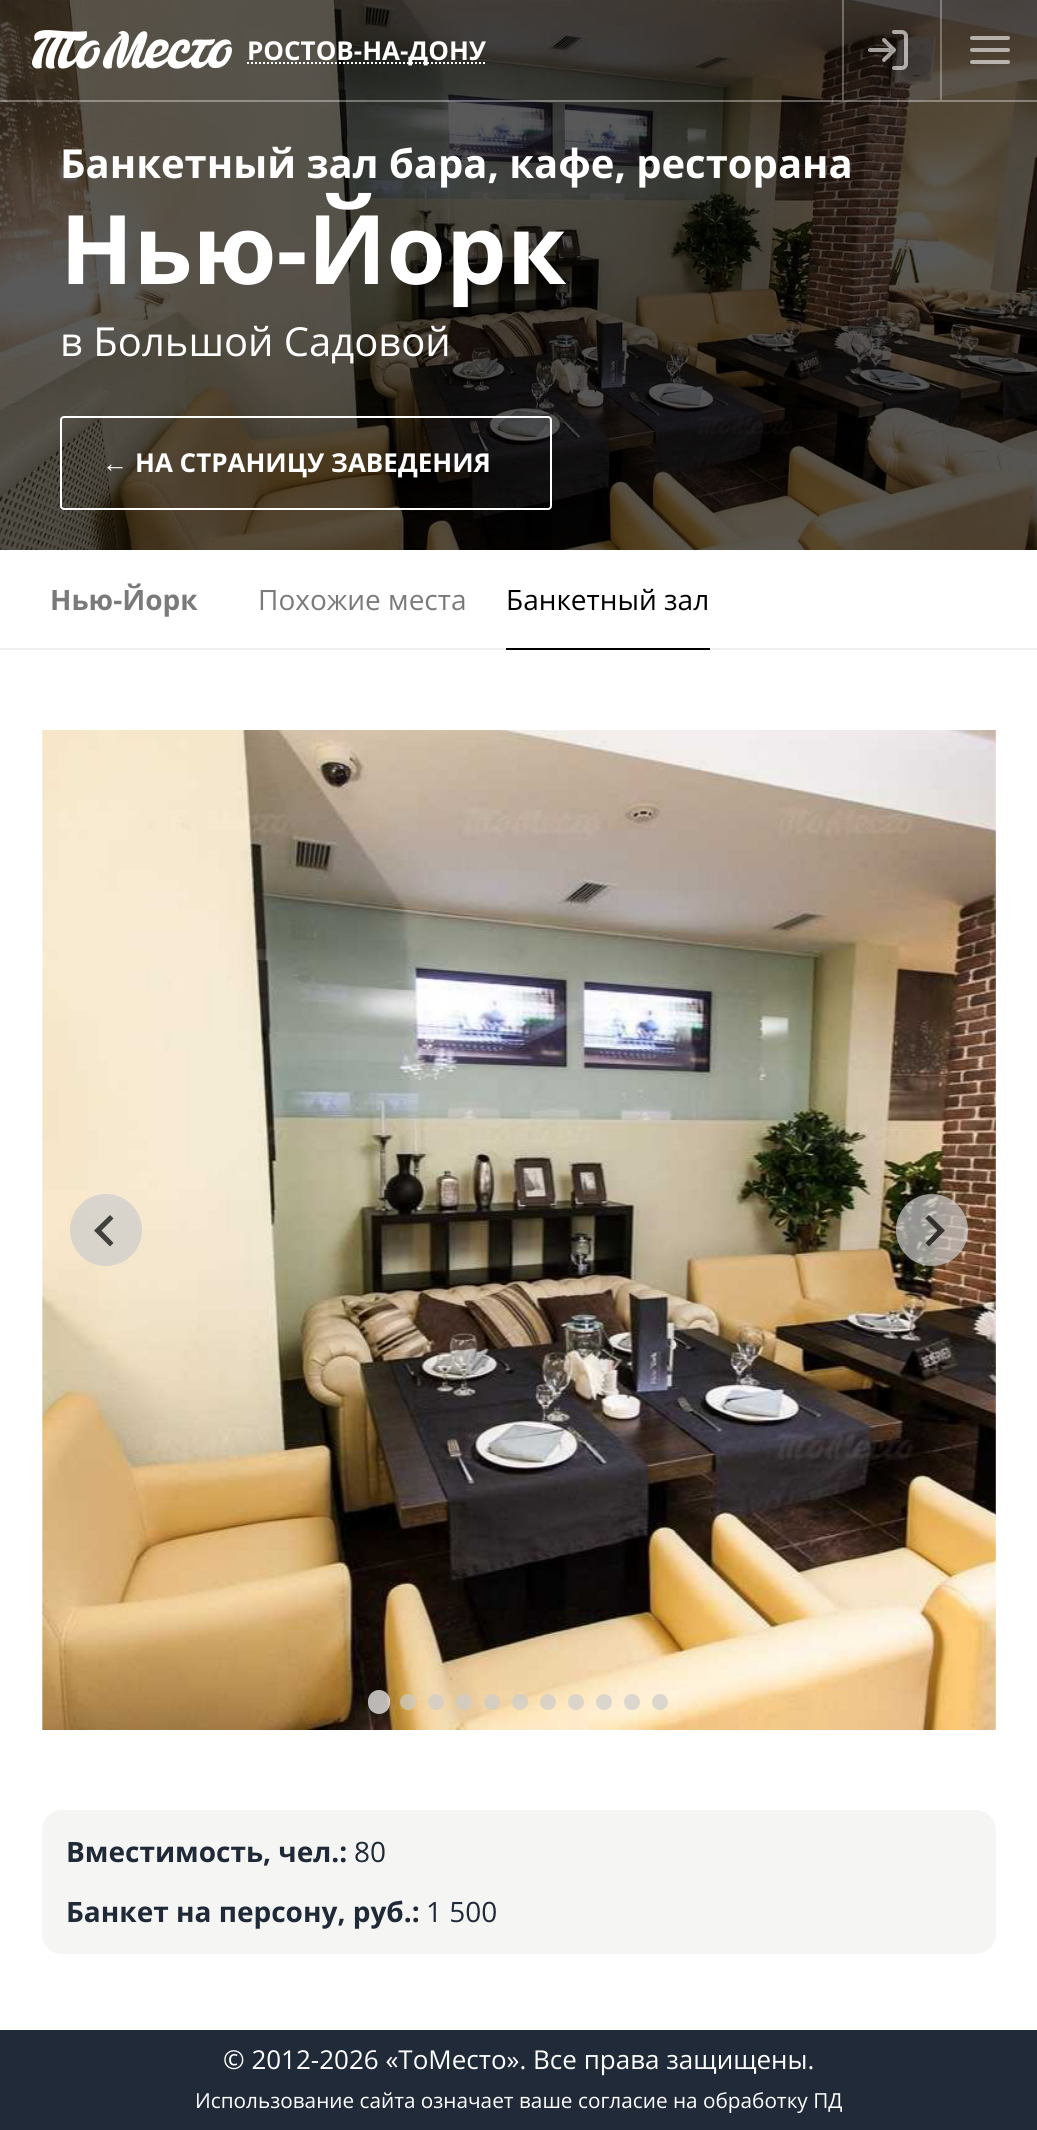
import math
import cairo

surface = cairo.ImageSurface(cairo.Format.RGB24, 1037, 2130)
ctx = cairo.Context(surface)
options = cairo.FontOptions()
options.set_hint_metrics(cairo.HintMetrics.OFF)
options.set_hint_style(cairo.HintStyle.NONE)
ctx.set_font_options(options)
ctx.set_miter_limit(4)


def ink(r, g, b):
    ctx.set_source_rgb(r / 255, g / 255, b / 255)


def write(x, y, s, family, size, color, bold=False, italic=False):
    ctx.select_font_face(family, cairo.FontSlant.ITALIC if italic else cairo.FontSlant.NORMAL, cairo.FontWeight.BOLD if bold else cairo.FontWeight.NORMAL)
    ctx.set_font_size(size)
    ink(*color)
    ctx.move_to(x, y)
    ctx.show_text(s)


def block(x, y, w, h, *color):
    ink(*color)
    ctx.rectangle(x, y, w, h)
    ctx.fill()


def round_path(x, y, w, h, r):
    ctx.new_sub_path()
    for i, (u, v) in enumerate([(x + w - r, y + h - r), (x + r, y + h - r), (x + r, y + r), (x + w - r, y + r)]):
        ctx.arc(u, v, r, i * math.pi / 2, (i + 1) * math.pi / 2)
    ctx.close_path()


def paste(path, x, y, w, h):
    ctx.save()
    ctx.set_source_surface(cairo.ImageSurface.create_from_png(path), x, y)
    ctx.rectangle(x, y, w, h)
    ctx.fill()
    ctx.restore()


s1 = dict(family="Open Sans", size=26, color=(255, 255, 255), bold=True)
s2 = dict(family="Open Sans", size=40, color=(255, 255, 255), bold=True)
s3 = dict(family="Open Sans", size=96, color=(255, 255, 255), bold=True)
s4 = dict(family="Open Sans", size=40, color=(255, 255, 255))
s5 = dict(family="Liberation Sans", size=26, color=(255, 255, 255), bold=True)
s6 = dict(family="Open Sans", size=28, color=(122, 122, 122), bold=True)
s7 = dict(family="Open Sans", size=28, color=(122, 122, 122))
s8 = dict(family="Open Sans", size=28, color=(0, 0, 0))
s9 = dict(family="Open Sans", size=28, color=(31, 41, 55), bold=True)
s10 = dict(family="Open Sans", size=28, color=(31, 41, 55))
s11 = dict(family="Open Sans", size=26, color=(255, 255, 255))
s12 = dict(family="Open Sans", size=20.75, color=(255, 255, 255))

ink(255, 255, 255)
ctx.paint()
block(0, 0, 1037, 550, 0, 0, 0)
paste("pic2.png", 0, 0, 1037, 550)
ctx.set_source_rgba(1, 1, 1, 0.35)
ctx.rectangle(0, 100, 1037, 2)
ctx.fill()
paste("pic1.png", 32, 30, 200, 39)
ctx.new_path()
ctx.move_to(247, 63)
ctx.line_to(486, 63)
ink(255, 255, 255)
ctx.set_dash([2, 2])
ctx.stroke()
write(247, 60, "РОСТОВ-НА-ДОНУ", **s1)
ctx.set_source_rgba(1, 1, 1, 0.3)
ctx.rectangle(940, 0, 2, 100)
ctx.fill()
ctx.rectangle(842, 0, 2, 100)
ctx.fill()
ctx.new_path()
ctx.move_to(894, 32)
ctx.line_to(902, 32)
ctx.curve_to(904, 32, 906, 34, 906, 36)
ctx.line_to(906, 64)
ctx.curve_to(906, 66, 904, 68, 902, 68)
ctx.line_to(894, 68)
ctx.move_to(884, 60)
ctx.line_to(894, 50)
ctx.line_to(884, 40)
ctx.move_to(894, 50)
ctx.line_to(870, 50)
ctx.set_source_rgba(1, 1, 1, 0.6)
ctx.set_line_width(4)
ctx.set_line_cap(cairo.LineCap.ROUND)
ctx.set_line_join(cairo.LineJoin.ROUND)
ctx.set_dash([])
ctx.stroke()
ctx.new_path()
ctx.move_to(972, 50)
ctx.line_to(1008, 50)
ctx.move_to(972, 38)
ctx.line_to(1008, 38)
ctx.move_to(972, 62)
ctx.line_to(1008, 62)
ctx.stroke()
write(60, 178, "Банкетный зал бара, кафе, ресторана", **s2)
write(60, 284, "Нью-Йорк", **s3)
write(60, 356, "в Большой Садовой", **s4)
round_path(61, 417, 490, 92, 3)
ctx.set_line_width(2)
ctx.set_line_cap(cairo.LineCap.BUTT)
ctx.set_line_join(cairo.LineJoin.MITER)
ctx.stroke()
write(102, 472, "←", **s5)
write(135, 472, "НА СТРАНИЦУ ЗАВЕДЕНИЯ", **s1)
block(0, 648, 1037, 2, 239, 240, 240)
write(50, 610, "Нью-Йорк", **s6)
write(258, 610, "Похожие места", **s7)
block(506, 648, 204, 2, 0, 0, 0)
write(506, 610, "Банкетный зал", **s8)
paste("pic3.png", 42, 730, 954, 1000)
ctx.set_source_rgba(0.8, 0.8, 0.8, 0.7)
ctx.arc(106, 1230, 36, 0, 2 * math.pi)
ctx.fill()
ink(65, 64, 61)
ctx.new_path()
ctx.move_to(110, 1215)
ctx.line_to(113.5, 1218.5)
ctx.line_to(101.5, 1230.5)
ctx.line_to(113.5, 1243)
ctx.line_to(110, 1246.5)
ctx.line_to(94, 1230.5)
ctx.close_path()
ctx.fill()
ctx.set_source_rgba(0.8, 0.8, 0.8, 0.7)
ctx.arc(932, 1230, 36, 0, 2 * math.pi)
ctx.fill()
ctx.set_source_rgba(0, 0, 0, 0.7)
ctx.new_path()
ctx.move_to(929, 1215)
ctx.line_to(925.5, 1218.5)
ctx.line_to(937.5, 1230.5)
ctx.line_to(925.5, 1243)
ctx.line_to(929, 1246.5)
ctx.line_to(945, 1230.5)
ctx.close_path()
ctx.fill()
ctx.set_source_rgba(1, 1, 1, 0.7)
round_path(368, 1690, 22, 24, 11)
ctx.fill()
ctx.set_source_rgba(0.8, 0.8, 0.8, 0.7)
ctx.arc(408, 1702, 8, 0, 2 * math.pi)
ctx.fill()
ctx.arc(436, 1702, 8, 0, 2 * math.pi)
ctx.fill()
ctx.arc(464, 1702, 8, 0, 2 * math.pi)
ctx.fill()
ctx.arc(492, 1702, 8, 0, 2 * math.pi)
ctx.fill()
ctx.arc(520, 1702, 8, 0, 2 * math.pi)
ctx.fill()
ctx.arc(548, 1702, 8, 0, 2 * math.pi)
ctx.fill()
ctx.arc(576, 1702, 8, 0, 2 * math.pi)
ctx.fill()
ctx.arc(604, 1702, 8, 0, 2 * math.pi)
ctx.fill()
ctx.arc(632, 1702, 8, 0, 2 * math.pi)
ctx.fill()
ctx.arc(660, 1702, 8, 0, 2 * math.pi)
ctx.fill()
ink(245, 245, 244)
round_path(42, 1810, 954, 144, 20)
ctx.fill()
write(66, 1862, "Вместимость, чел.:", **s9)
write(354, 1862, "80", **s10)
write(66, 1922, "Банкет на персону, руб.:", **s9)
write(426, 1922, "1 500", **s10)
block(0, 2030, 1037, 100, 33, 42, 57)
write(223, 2069, "© 2012-2026 «ТоМесто». Все права защищены.", **s11)
write(195, 2108, "Использование сайта означает ваше", **s12)
write(578, 2108, "согласие на обработку ПД", **s12)
surface.write_to_png("screenshot.png")
